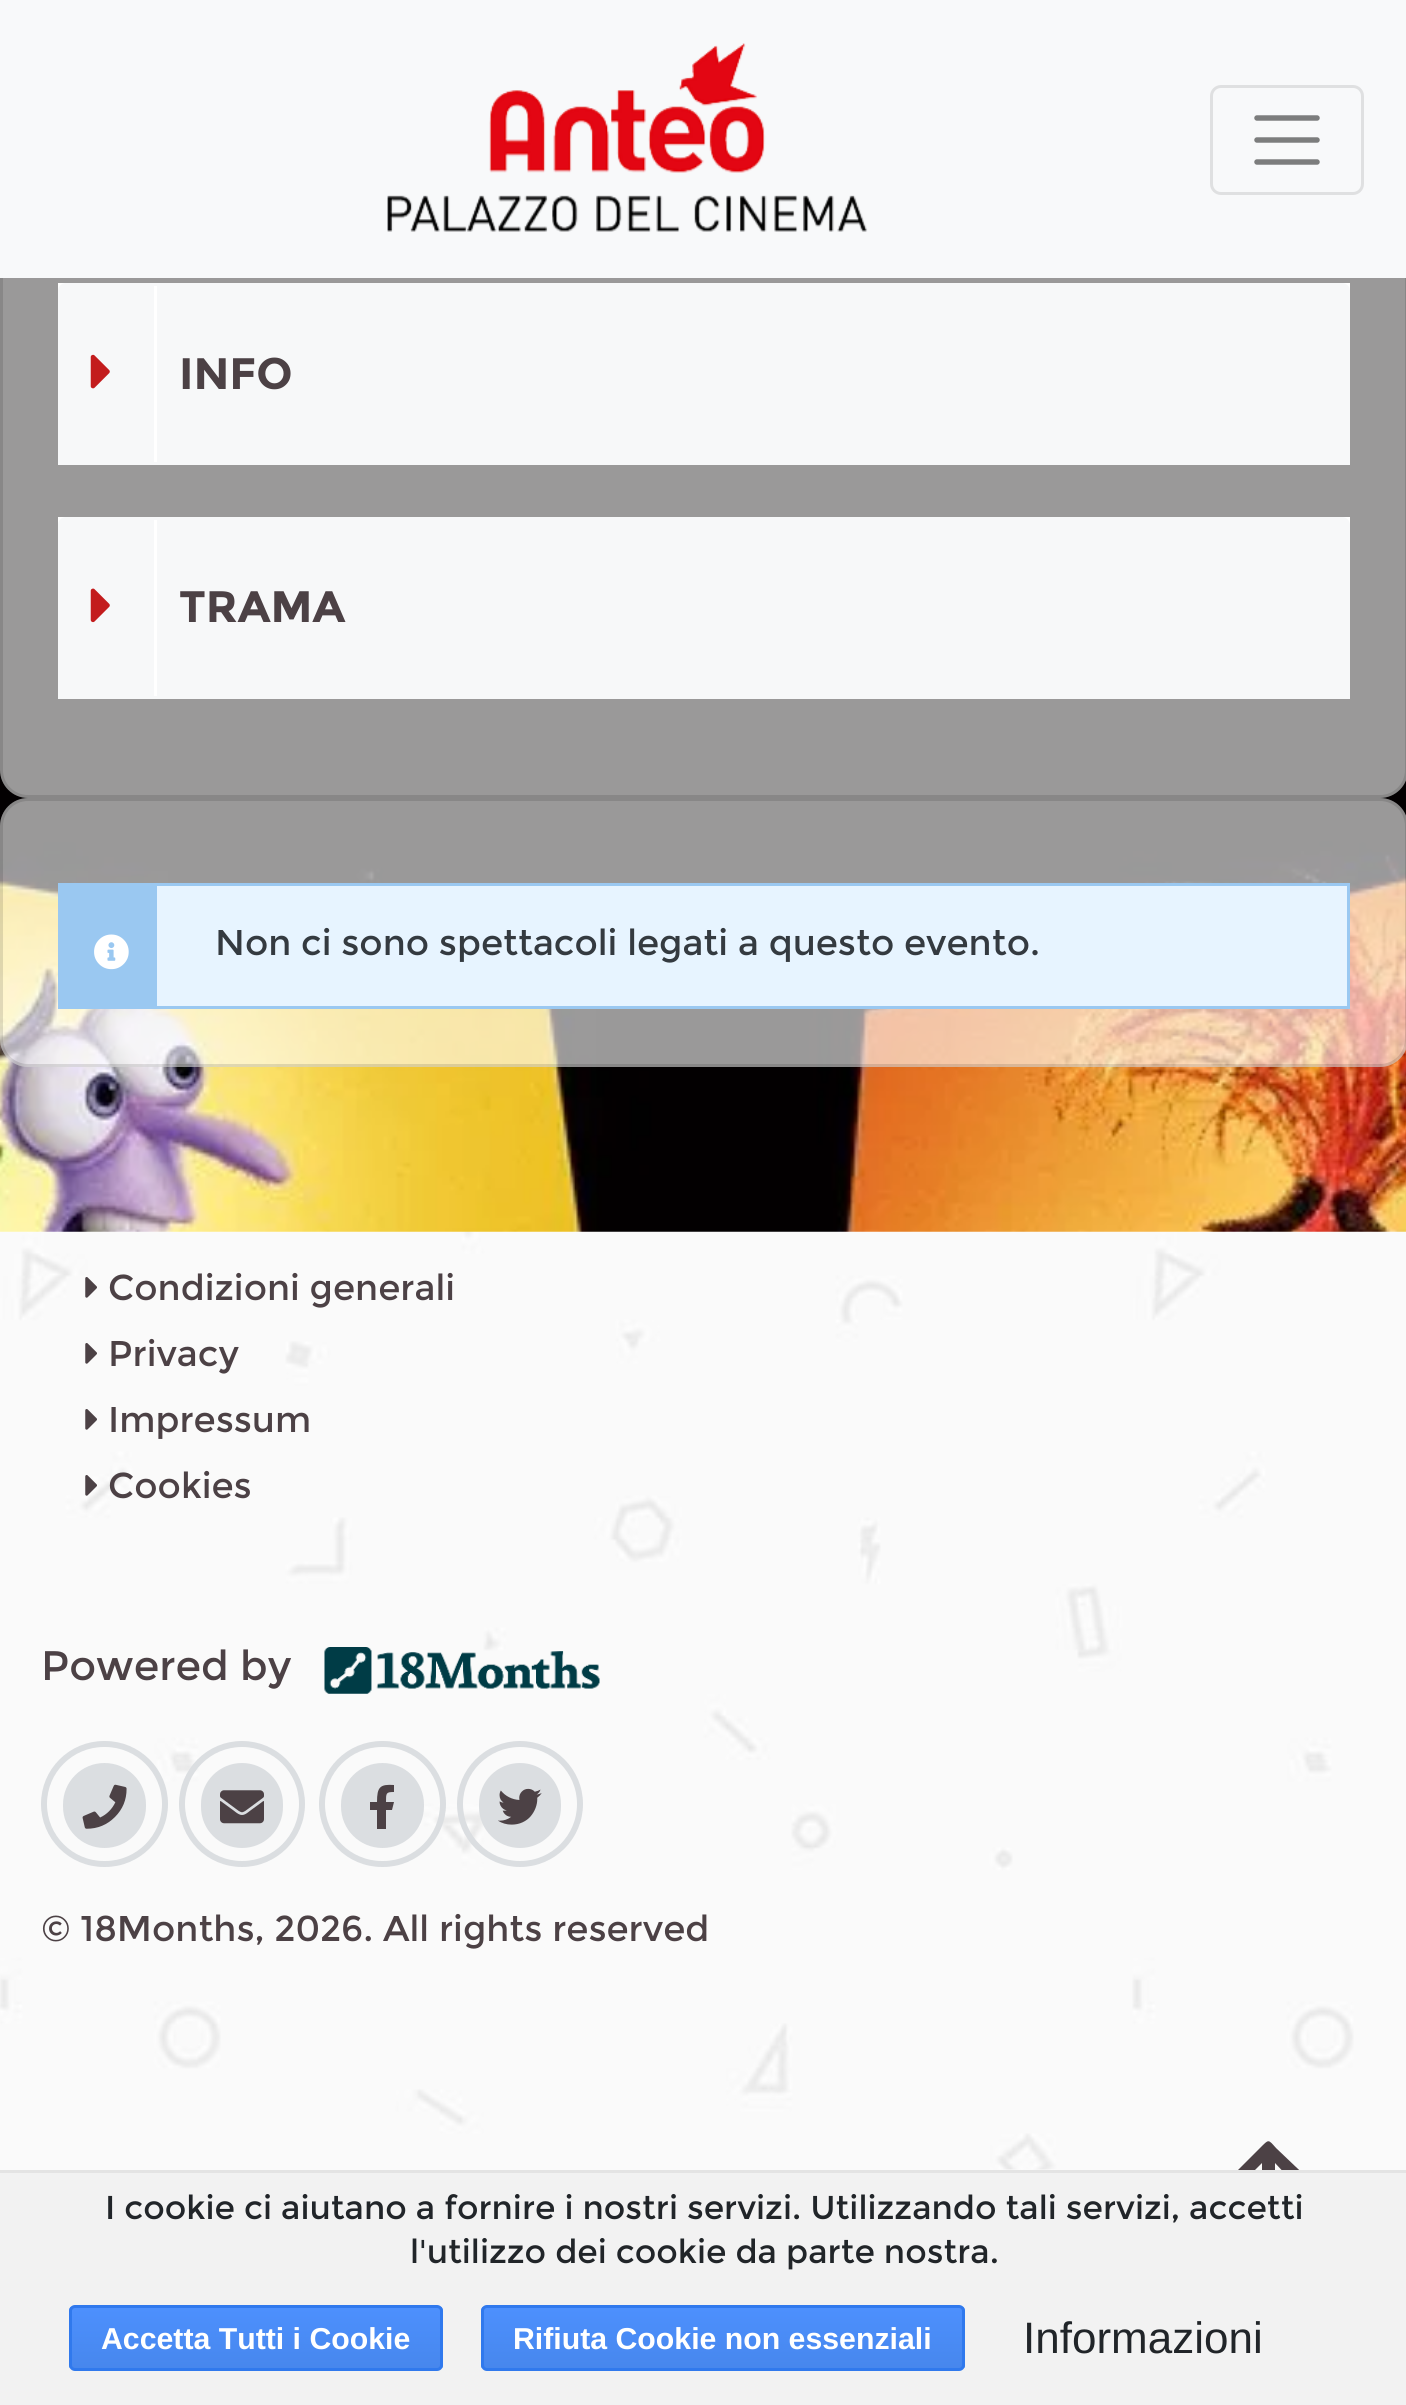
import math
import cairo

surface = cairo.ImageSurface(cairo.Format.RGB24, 1406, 2405)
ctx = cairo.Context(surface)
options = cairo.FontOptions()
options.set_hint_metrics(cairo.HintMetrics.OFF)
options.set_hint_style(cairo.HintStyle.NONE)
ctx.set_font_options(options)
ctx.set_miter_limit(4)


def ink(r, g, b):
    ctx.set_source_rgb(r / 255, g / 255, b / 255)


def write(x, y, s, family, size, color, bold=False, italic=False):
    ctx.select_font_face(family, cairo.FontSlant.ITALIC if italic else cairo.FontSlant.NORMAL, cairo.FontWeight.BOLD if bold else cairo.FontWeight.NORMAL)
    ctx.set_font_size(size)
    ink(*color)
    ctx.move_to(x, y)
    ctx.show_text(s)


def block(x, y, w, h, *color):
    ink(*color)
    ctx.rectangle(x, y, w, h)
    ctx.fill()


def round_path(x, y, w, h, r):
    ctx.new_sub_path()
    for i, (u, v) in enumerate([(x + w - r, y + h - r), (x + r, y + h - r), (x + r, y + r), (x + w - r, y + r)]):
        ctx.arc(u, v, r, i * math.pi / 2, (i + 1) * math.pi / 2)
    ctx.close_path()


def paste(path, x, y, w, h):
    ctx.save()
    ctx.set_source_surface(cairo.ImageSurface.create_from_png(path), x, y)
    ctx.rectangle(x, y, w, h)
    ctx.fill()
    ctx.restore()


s1 = dict(family="Montserrat", size=44, color=(76, 65, 69), bold=True)
s2 = dict(family="Montserrat", size=35.75, color=(52, 58, 64))
s3 = dict(family="Montserrat", size=35.75, color=(76, 65, 69))
s4 = dict(family="Montserrat", size=41.25, color=(76, 65, 69))
s5 = dict(family="Montserrat", size=33, color=(33, 37, 41))
s6 = dict(family="Liberation Sans", size=30.25, color=(255, 255, 255), bold=True)
s7 = dict(family="Liberation Sans", size=44, color=(33, 37, 41))

ink(255, 255, 255)
ctx.paint()
paste("pic5.png", 0, 770, 1406, 462)
ink(154, 153, 153)
round_path(0, -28, 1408, 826, 28)
ctx.fill()
round_path(1.5, -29.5, 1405, 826, 26.5)
ctx.set_source_rgba(0, 0, 0, 0.12)
ctx.set_line_width(3)
ctx.stroke()
block(0, 0, 1406, 278, 248, 249, 250)
paste("pic1.png", 387, 43, 481, 189)
round_path(1211.5, 86.5, 151, 107, 9.5)
ink(223, 224, 225)
ctx.stroke()
ctx.new_path()
ctx.move_to(1257, 118)
ctx.line_to(1317, 118)
ctx.move_to(1257, 140)
ctx.line_to(1317, 140)
ctx.move_to(1257, 162)
ctx.line_to(1317, 162)
ink(124, 125, 125)
ctx.set_line_width(5.5)
ctx.set_line_cap(cairo.LineCap.ROUND)
ctx.stroke()
block(58, 283, 1292, 8, 255, 255, 255)
ink(247, 248, 249)
ctx.new_path()
ctx.move_to(66, 283)
ctx.line_to(1342, 283)
ctx.curve_to(1346.5, 283, 1350, 286.5, 1350, 291)
ctx.line_to(1350, 465)
ctx.line_to(58, 465)
ctx.line_to(58, 291)
ctx.curve_to(58, 286.5, 61.5, 283, 66, 283)
ctx.close_path()
ctx.fill()
block(154, 286, 3, 176, 255, 255, 255)
paste("pic2.png", 90, 354, 20, 35)
write(179, 389, "INFO", **s1)
block(58, 517, 1292, 8, 255, 255, 255)
ink(247, 248, 249)
ctx.new_path()
ctx.move_to(66, 517)
ctx.line_to(1342, 517)
ctx.curve_to(1346.5, 517, 1350, 520.5, 1350, 525)
ctx.line_to(1350, 699)
ctx.line_to(58, 699)
ctx.line_to(58, 525)
ctx.curve_to(58, 520.5, 61.5, 517, 66, 517)
ctx.close_path()
ctx.fill()
block(154, 520, 3, 176, 255, 255, 255)
paste("pic3.png", 90, 588, 20, 35)
write(179, 622, "TRAMA", **s1)
ctx.set_source_rgba(1, 1, 1, 0.6)
round_path(0, 798, 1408, 269, 28)
ctx.fill()
round_path(1.5, 799.5, 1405, 266, 26.5)
ctx.set_source_rgba(0, 0, 0, 0.12)
ctx.set_line_width(3)
ctx.set_line_cap(cairo.LineCap.BUTT)
ctx.stroke()
block(157, 886, 1190, 120, 231, 244, 255)
ctx.rectangle(59.5, 884.5, 1289, 123)
ink(154, 200, 241)
ctx.stroke()
block(61, 886, 96, 120, 154, 200, 241)
paste("pic4.png", 94, 934, 35, 36)
write(215, 955, "Non ci sono spettacoli legati a questo evento.", **s2)
block(0, 2169, 1406, 1, 250, 250, 250)
paste("pic6.png", 0, 1231, 1406, 939)
paste("pic7.png", 85, 1277, 12, 21)
write(108, 1300, "Condizioni generali", **s3)
paste("pic7.png", 85, 1343, 12, 21)
write(108, 1366, "Privacy", **s3)
paste("pic7.png", 85, 1409, 12, 21)
write(108, 1432, "Impressum", **s3)
paste("pic8.png", 85, 1475, 12, 21)
write(108, 1498, "Cookies", **s3)
write(41, 1680, "Powered by", **s4)
paste("pic9.png", 324, 1647, 276, 47)
ink(219, 222, 225)
round_path(63, 1763, 83, 85, 41.5)
ctx.fill()
paste("pic10.png", 82, 1784, 45, 45)
round_path(44, 1744, 121, 120, 60)
ctx.set_line_width(6)
ctx.stroke()
round_path(201, 1763, 82, 85, 41)
ctx.fill()
paste("pic11.png", 220, 1790, 44, 34)
ctx.arc(242, 1804, 60, 0, 2 * math.pi)
ctx.stroke()
round_path(341, 1763, 83, 85, 41.5)
ctx.fill()
ink(76, 65, 69)
ctx.new_path()
ctx.move_to(392, 1810)
ctx.line_to(386, 1810)
ctx.line_to(386, 1829)
ctx.line_to(377, 1829)
ctx.line_to(377, 1810)
ctx.line_to(370, 1810)
ctx.line_to(370, 1802)
ctx.line_to(377, 1802)
ctx.curve_to(377, 1787, 380, 1784, 394, 1785)
ctx.line_to(394, 1792)
ctx.curve_to(386, 1792, 386, 1793, 386, 1802)
ctx.line_to(394, 1802)
ctx.close_path()
ctx.fill()
round_path(322, 1744, 121, 120, 60)
ink(219, 222, 225)
ctx.stroke()
round_path(479, 1763, 82, 85, 41)
ctx.fill()
paste("pic12.png", 498, 1788, 44, 37)
ctx.arc(520, 1804, 60, 0, 2 * math.pi)
ctx.stroke()
write(41, 1941, "© 18Months, 2026. All rights reserved", **s3)
ctx.new_path()
ctx.move_to(1238, 2183)
ctx.curve_to(1236, 2181, 1231, 2177, 1234, 2174)
ctx.line_to(1260, 2148)
ctx.curve_to(1269, 2139, 1268, 2139, 1276, 2148)
ctx.line_to(1297, 2168)
ctx.curve_to(1299, 2170, 1306, 2175, 1302, 2179)
ctx.curve_to(1296, 2185, 1296, 2186, 1290, 2179)
ctx.line_to(1275, 2163)
ctx.line_to(1275, 2202)
ctx.curve_to(1275, 2208, 1276, 2213, 1269, 2213)
ctx.curve_to(1266, 2213, 1262, 2214, 1262, 2210)
ctx.line_to(1262, 2163)
ctx.line_to(1249, 2176)
ctx.curve_to(1247, 2178, 1242, 2187, 1238, 2183)
ctx.close_path()
ctx.fill()
block(0, 2173, 1406, 232, 242, 242, 242)
block(0, 2170, 1406, 3, 228, 228, 228)
write(105, 2219, "I cookie ci aiutano a fornire i nostri servizi. Utilizzando tali servizi, accetti", **s5)
write(410, 2263, "l'utilizzo dei cookie da parte nostra.", **s5)
ctx.save()
round_path(69, 2305, 374, 66, 6)
ctx.clip()
gradient = cairo.LinearGradient(256, 2307, 256, 2368)
gradient.add_color_stop_rgba(0, 0.302, 0.565, 0.996, 1)
gradient.add_color_stop_rgba(1, 0.278, 0.529, 0.929, 1)
ctx.set_source(gradient)
ctx.rectangle(69, 2307, 374, 61)
ctx.fill()
ctx.restore()
round_path(70.5, 2306.5, 371, 63, 4.5)
ink(48, 121, 237)
ctx.set_line_width(3)
ctx.stroke()
write(101, 2349, "Accetta Tutti i Cookie", **s6)
ctx.save()
round_path(481, 2305, 484, 66, 6)
ctx.clip()
gradient = cairo.LinearGradient(723, 2307, 723, 2368)
gradient.add_color_stop_rgba(0, 0.302, 0.565, 0.996, 1)
gradient.add_color_stop_rgba(1, 0.278, 0.529, 0.929, 1)
ctx.set_source(gradient)
ctx.rectangle(481, 2307, 484, 61)
ctx.fill()
ctx.restore()
round_path(482.5, 2306.5, 481, 63, 4.5)
ink(48, 121, 237)
ctx.stroke()
write(513, 2349, "Rifiuta Cookie non essenziali", **s6)
write(1023, 2353, "Informazioni", **s7)
surface.write_to_png("screenshot.png")
